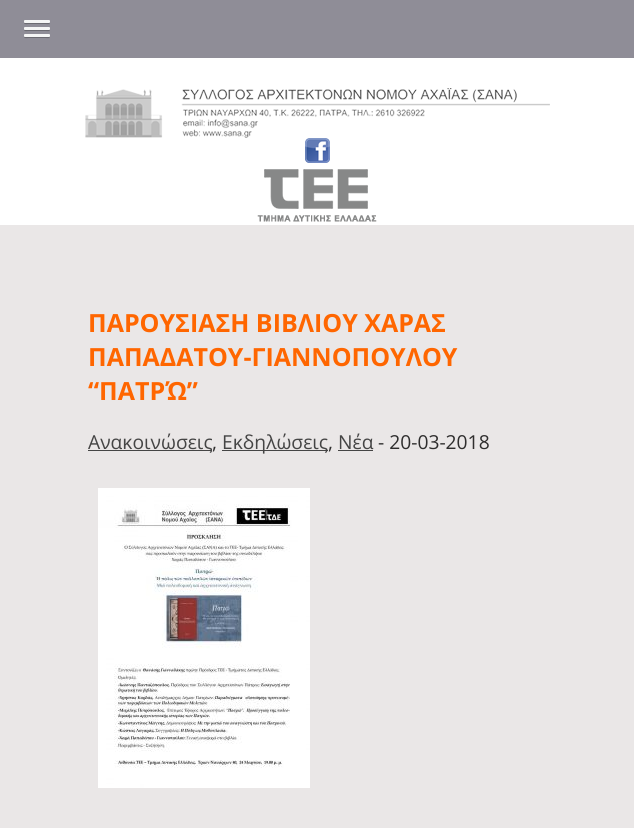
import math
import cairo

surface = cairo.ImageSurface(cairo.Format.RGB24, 634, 828)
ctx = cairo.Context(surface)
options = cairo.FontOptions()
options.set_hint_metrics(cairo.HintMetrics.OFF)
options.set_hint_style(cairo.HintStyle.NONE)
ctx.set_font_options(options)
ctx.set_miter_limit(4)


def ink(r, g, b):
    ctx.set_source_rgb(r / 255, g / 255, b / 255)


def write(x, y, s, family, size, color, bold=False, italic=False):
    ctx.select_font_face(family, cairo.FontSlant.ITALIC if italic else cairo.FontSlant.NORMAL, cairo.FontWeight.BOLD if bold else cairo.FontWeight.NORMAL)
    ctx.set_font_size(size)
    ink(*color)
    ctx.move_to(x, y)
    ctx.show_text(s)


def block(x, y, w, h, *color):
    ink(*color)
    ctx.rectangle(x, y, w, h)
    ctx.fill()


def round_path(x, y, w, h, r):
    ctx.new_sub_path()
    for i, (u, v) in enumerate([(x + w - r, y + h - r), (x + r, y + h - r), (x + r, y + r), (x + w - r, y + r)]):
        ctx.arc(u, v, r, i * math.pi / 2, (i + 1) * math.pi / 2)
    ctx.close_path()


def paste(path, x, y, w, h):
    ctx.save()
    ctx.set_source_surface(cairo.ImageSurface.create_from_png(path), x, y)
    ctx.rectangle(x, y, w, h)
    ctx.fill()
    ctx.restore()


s1 = dict(family="Open Sans", size=25, color=(255, 102, 0), bold=True)
s2 = dict(family="Open Sans", size=19.25, color=(69, 69, 69))
s3 = dict(family="Open Sans", size=19.25, color=(47, 46, 46))

ink(234, 231, 231)
ctx.paint()
block(0, 0, 634, 58, 143, 141, 151)
ink(107, 106, 113)
ctx.new_path()
ctx.move_to(24, 22)
ctx.curve_to(24, 25, 26, 24, 29, 24)
ctx.line_to(45, 24)
ctx.curve_to(48, 24, 50, 25, 50, 22)
ctx.curve_to(50, 22.5, 49.5, 23, 49, 23)
ctx.line_to(25, 23)
ctx.curve_to(24.5, 23, 24, 22.5, 24, 22)
ctx.close_path()
ctx.fill()
ink(245, 245, 245)
round_path(24, 20, 26, 3, 1)
ctx.fill()
ink(107, 106, 113)
ctx.new_path()
ctx.move_to(24, 29)
ctx.curve_to(24, 32, 26, 31, 29, 31)
ctx.line_to(45, 31)
ctx.curve_to(48, 31, 50, 32, 50, 29)
ctx.curve_to(50, 29.5, 49.5, 30, 49, 30)
ctx.line_to(25, 30)
ctx.curve_to(24.5, 30, 24, 29.5, 24, 29)
ctx.close_path()
ctx.fill()
ink(245, 245, 245)
round_path(24, 27, 26, 3, 1)
ctx.fill()
ink(107, 106, 113)
ctx.new_path()
ctx.move_to(24, 36)
ctx.curve_to(24, 39, 26, 38, 29, 38)
ctx.line_to(45, 38)
ctx.curve_to(48, 38, 50, 39, 50, 36)
ctx.curve_to(50, 36.5, 49.5, 37, 49, 37)
ctx.line_to(25, 37)
ctx.curve_to(24.5, 37, 24, 36.5, 24, 36)
ctx.close_path()
ctx.fill()
ink(245, 245, 245)
round_path(24, 34, 26, 3, 1)
ctx.fill()
block(0, 58, 634, 167, 255, 255, 255)
paste("pic1.png", 85, 88, 465, 50)
paste("pic2.png", 305, 138, 25, 25)
paste("pic3.png", 257, 169, 120, 53)
write(88, 332, "ΠΑΡΟΥΣΙΑΣΗ ΒΙΒΛΙΟΥ ΧΑΡΑΣ", **s1)
write(88, 366, "ΠΑΠΑΔΑΤΟΥ-ΓΙΑΝΝΟΠΟΥΛΟΥ", **s1)
write(88, 400, "“ΠΑΤΡΏ”", **s1)
block(88, 450, 124, 1, 69, 69, 69)
write(88, 449, "Ανακοινώσεις", **s2)
write(212, 449, ",", **s3)
block(222, 450, 106, 1, 69, 69, 69)
write(222, 449, "Εκδηλώσεις", **s2)
write(328, 449, ",", **s3)
write(338, 449, "Νέα", **s2)
block(338, 450, 35, 1, 69, 69, 69)
write(378, 449, "- 20-03-2018", **s3)
paste("pic4.png", 98, 488, 212, 300)
surface.write_to_png("screenshot.png")
